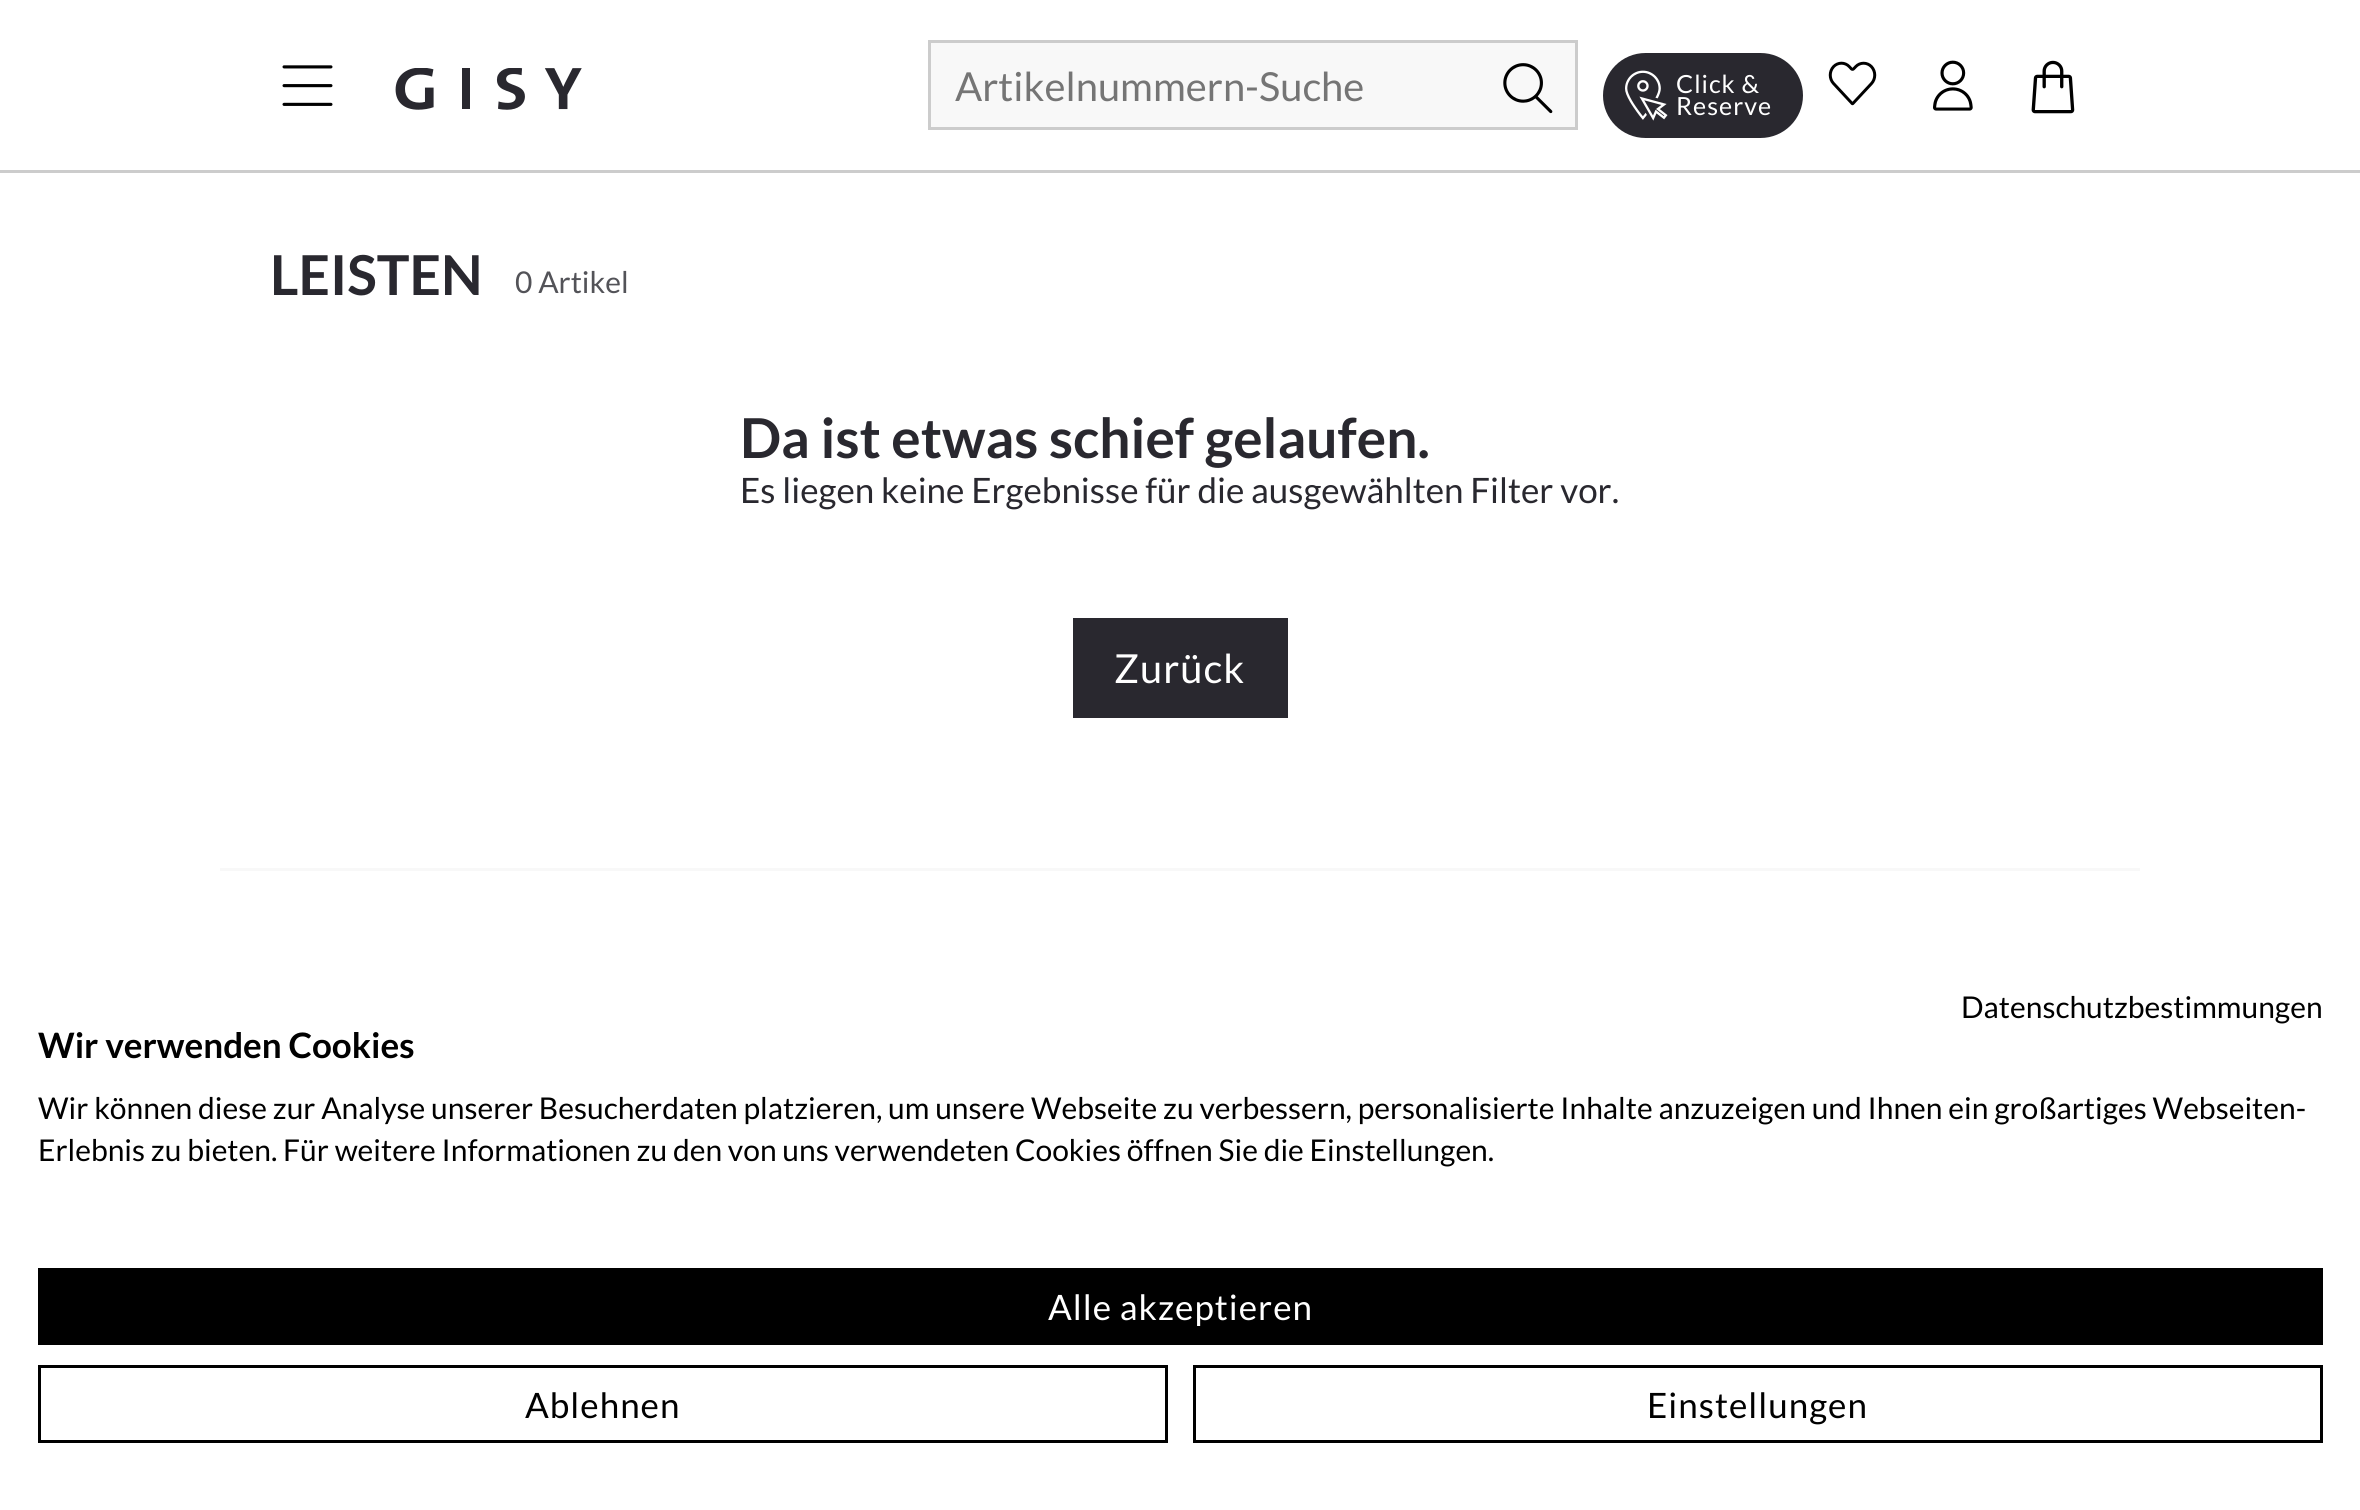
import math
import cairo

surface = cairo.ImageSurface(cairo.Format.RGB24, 2360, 1510)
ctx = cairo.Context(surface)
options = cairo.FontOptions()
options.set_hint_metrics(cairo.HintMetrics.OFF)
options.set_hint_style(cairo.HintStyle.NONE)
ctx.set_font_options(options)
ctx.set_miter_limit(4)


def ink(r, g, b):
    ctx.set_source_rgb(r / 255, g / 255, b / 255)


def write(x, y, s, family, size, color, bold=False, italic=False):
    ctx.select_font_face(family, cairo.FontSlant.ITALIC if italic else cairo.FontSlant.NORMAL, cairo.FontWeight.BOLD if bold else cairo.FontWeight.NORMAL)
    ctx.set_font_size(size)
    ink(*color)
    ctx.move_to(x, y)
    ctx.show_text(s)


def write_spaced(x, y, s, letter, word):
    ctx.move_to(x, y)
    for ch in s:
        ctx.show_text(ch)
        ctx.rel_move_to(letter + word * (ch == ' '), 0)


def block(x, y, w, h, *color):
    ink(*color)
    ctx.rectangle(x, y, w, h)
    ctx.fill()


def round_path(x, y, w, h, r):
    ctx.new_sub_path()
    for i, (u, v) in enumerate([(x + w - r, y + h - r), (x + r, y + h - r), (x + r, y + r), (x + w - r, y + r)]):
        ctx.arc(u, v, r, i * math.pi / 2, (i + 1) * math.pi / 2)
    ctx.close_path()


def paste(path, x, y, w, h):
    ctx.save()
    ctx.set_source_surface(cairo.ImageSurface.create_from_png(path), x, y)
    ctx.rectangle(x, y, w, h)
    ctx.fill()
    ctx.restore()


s1 = dict(family="Lato", size=40, color=(117, 117, 117))
s2 = dict(family="Lato", size=55, color=(41, 40, 47), bold=True)
s3 = dict(family="Lato", size=30, color=(83, 83, 88))
s4 = dict(family="Lato", size=35, color=(41, 40, 47))
s5 = dict(family="Lato", size=30, color=(0, 0, 0))
s6 = dict(family="Lato", size=35, color=(0, 0, 0), bold=True)

ink(255, 255, 255)
ctx.paint()
block(0, 170, 2360, 3, 204, 204, 204)
paste("pic1.png", 282, 65, 51, 41)
paste("pic2.png", 395, 68, 187, 42)
ink(248, 248, 248)
ctx.rectangle(929.5, 41.5, 647, 87)
ctx.fill_preserve()
ink(204, 204, 204)
ctx.set_line_width(3)
ctx.stroke()
write(955, 101, "Artikelnummern-Suche", **s1)
paste("pic3.png", 1503, 63, 50, 51)
ink(41, 40, 47)
round_path(1603, 53, 200, 85, 42.5)
ctx.fill()
paste("pic4.png", 1625, 70, 43, 51)
ctx.set_font_size(25)
ink(255, 255, 255)
write_spaced(1676, 93, "Click &", 1, 0)
write_spaced(1676, 115, "Reserve", 1, 0)
paste("pic5.png", 1828, 61, 49, 45)
paste("pic6.png", 1933, 60, 40, 51)
paste("pic7.png", 2031, 60, 44, 54)
write(270, 295, "LEISTEN", **s2)
write(515, 293, "0 Artikel", **s3)
write(740, 458, "Da ist etwas schief gelaufen.", **s2)
write(740, 503, "Es liegen keine Ergebnisse für die ausgewählten Filter vor.", **s4)
block(1073, 618, 215, 100, 41, 40, 47)
ctx.set_font_size(40)
ink(255, 255, 255)
write_spaced(1114, 683, "Zurück", 1, 0)
block(220, 868, 1920, 3, 248, 248, 248)
write(1961, 1018, "Datenschutzbestimmungen", **s5)
write(38, 1058, "Wir verwenden Cookies", **s6)
write(38, 1119, "Wir können diese zur Analyse unserer Besucherdaten platzieren, um unsere Webseite zu verbessern, personalisierte Inhalte anzuzeigen und Ihnen ein großartiges Webseiten-", **s5)
write(38, 1161, "Erlebnis zu bieten. Für weitere Informationen zu den von uns verwendeten Cookies öffnen Sie die Einstellungen.", **s5)
block(38, 1268, 2285, 77, 0, 0, 0)
ctx.set_font_size(35)
ink(255, 255, 255)
write_spaced(1048, 1320, "Alle akzeptieren", 1, 0)
ctx.rectangle(39.5, 1366.5, 1127, 75)
ink(0, 0, 0)
ctx.stroke()
write_spaced(525, 1418, "Ablehnen", 1, 0)
ctx.rectangle(1194.5, 1366.5, 1127, 75)
ctx.stroke()
write_spaced(1647, 1418, "Einstellungen", 1, 0)
surface.write_to_png("screenshot.png")
